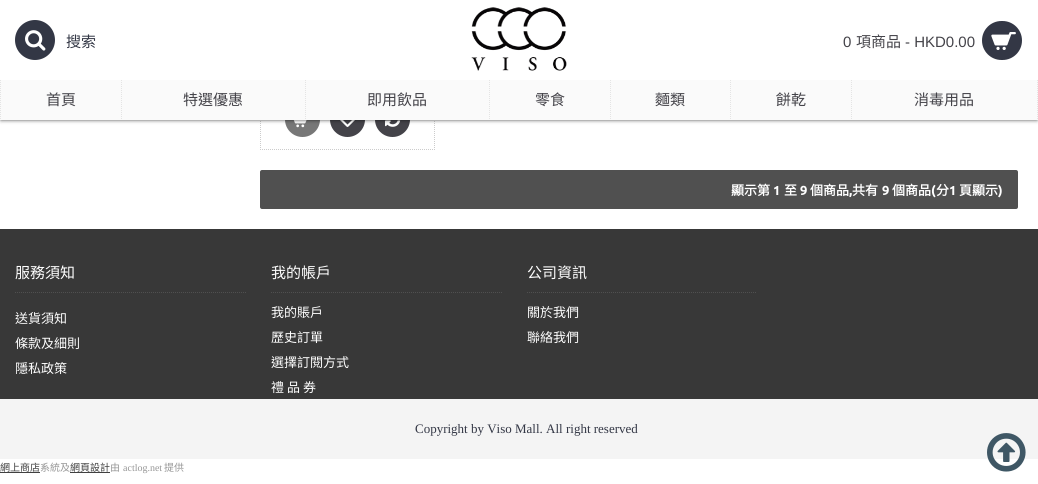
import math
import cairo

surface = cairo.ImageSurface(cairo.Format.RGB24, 1038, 484)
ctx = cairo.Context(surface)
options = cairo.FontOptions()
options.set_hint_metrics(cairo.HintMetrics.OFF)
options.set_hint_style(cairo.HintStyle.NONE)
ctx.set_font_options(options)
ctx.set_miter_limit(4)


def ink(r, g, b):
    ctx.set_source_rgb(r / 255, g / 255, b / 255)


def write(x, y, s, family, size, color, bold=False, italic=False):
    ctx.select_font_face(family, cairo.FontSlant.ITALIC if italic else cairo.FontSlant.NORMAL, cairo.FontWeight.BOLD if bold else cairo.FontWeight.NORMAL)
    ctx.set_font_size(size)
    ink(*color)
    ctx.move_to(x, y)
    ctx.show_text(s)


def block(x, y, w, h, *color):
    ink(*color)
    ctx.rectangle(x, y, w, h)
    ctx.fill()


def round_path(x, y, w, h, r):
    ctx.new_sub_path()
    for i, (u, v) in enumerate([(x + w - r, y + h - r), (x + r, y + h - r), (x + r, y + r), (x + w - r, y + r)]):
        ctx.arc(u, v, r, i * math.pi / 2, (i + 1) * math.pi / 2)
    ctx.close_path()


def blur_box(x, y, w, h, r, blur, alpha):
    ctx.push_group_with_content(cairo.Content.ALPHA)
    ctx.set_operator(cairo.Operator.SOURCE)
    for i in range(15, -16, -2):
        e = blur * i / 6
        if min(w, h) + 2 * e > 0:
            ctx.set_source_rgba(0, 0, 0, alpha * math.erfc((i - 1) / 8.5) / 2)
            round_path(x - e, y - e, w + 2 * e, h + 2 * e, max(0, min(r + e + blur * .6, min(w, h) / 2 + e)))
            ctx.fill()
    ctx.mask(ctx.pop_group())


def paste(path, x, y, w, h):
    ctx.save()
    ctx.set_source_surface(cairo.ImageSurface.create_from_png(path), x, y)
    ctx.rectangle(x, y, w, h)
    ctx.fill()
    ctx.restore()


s1 = dict(family="Noto Sans CJK HK", size=15, color=(51, 55, 69))
s2 = dict(family="Liberation Sans", size=15, color=(68, 67, 73))
s3 = dict(family="Noto Sans CJK HK", size=15, color=(68, 67, 73))
s4 = dict(family="Noto Sans CJK HK", size=13, color=(255, 255, 255), bold=True)
s5 = dict(family="Ubuntu", size=13, color=(255, 255, 255), bold=True)
s6 = dict(family="Noto Sans CJK HK", size=15, color=(255, 255, 255))
s7 = dict(family="Noto Sans CJK HK", size=13, color=(255, 255, 255))
s8 = dict(family="Liberation Serif", size=13, color=(51, 55, 69))
s9 = dict(family="Noto Sans CJK HK", size=10, color=(64, 64, 64))
s10 = dict(family="Noto Sans CJK HK", size=10, color=(150, 150, 150))
s11 = dict(family="Liberation Serif", size=10, color=(150, 150, 150))

ink(255, 255, 255)
ctx.paint()
ctx.new_path()
ctx.move_to(434.5, -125)
ctx.line_to(434.5, 150)
ink(204, 204, 204)
ctx.set_line_width(1)
ctx.set_dash([1, 1])
ctx.stroke()
ctx.new_path()
ctx.move_to(260, 149.5)
ctx.line_to(435, 149.5)
ctx.stroke()
ctx.new_path()
ctx.move_to(260.5, -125)
ctx.line_to(260.5, 150)
ctx.stroke()
ink(119, 119, 119)
ctx.arc(302.5, 119.5, 17.5, 0, 2 * math.pi)
ctx.fill()
paste("pic4.png", 293, 120, 14, 8)
ink(68, 67, 73)
ctx.arc(347.5, 119.5, 17.5, 0, 2 * math.pi)
ctx.fill()
paste("pic5.png", 340, 120, 15, 7)
ctx.arc(392.5, 119.5, 17.5, 0, 2 * math.pi)
ctx.fill()
paste("pic6.png", 385, 120, 16, 7)
ink(0, 0, 0)
blur_box(1, -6, 1036, 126, 0, 2, 0.7)
block(0, 0, 1038, 80, 255, 255, 255)
ink(51, 55, 69)
ctx.arc(35, 40, 20, 0, 2 * math.pi)
ctx.fill()
paste("pic1.png", 25, 30, 21, 21)
write(66, 47, "搜索", **s1)
paste("pic2.png", 471, 7, 96, 64)
write(843, 47, "0", **s2)
write(856, 47, "項商品", **s3)
write(905, 47, "- HKD0.00", **s2)
ink(51, 55, 69)
round_path(982, 21, 40, 39, 19.5)
ctx.fill()
paste("pic3.png", 991, 32, 25, 18)
block(0, 80, 1038, 40, 250, 250, 250)
ctx.new_path()
ctx.move_to(0.5, 80)
ctx.line_to(0.5, 120)
ink(228, 228, 228)
ctx.stroke()
write(46, 105, "首頁", **s3)
ctx.new_path()
ctx.move_to(121.5, 80)
ctx.line_to(121.5, 120)
ink(228, 228, 228)
ctx.stroke()
write(183, 105, "特選優惠", **s3)
ctx.new_path()
ctx.move_to(305.5, 80)
ctx.line_to(305.5, 120)
ink(228, 228, 228)
ctx.stroke()
write(367, 105, "即用飲品", **s3)
ctx.new_path()
ctx.move_to(489.5, 80)
ctx.line_to(489.5, 120)
ink(228, 228, 228)
ctx.stroke()
write(535, 105, "零食", **s3)
ctx.new_path()
ctx.move_to(610.5, 80)
ctx.line_to(610.5, 120)
ink(228, 228, 228)
ctx.stroke()
write(655, 105, "麵類", **s3)
ctx.new_path()
ctx.move_to(730.5, 80)
ctx.line_to(730.5, 120)
ink(228, 228, 228)
ctx.stroke()
write(776, 105, "餅乾", **s3)
ctx.new_path()
ctx.move_to(1037.5, 80)
ctx.line_to(1037.5, 120)
ink(228, 228, 228)
ctx.stroke()
ctx.new_path()
ctx.move_to(851.5, 80)
ctx.line_to(851.5, 120)
ctx.stroke()
write(914, 105, "消毒用品", **s3)
ink(80, 80, 80)
round_path(260, 170, 758, 39, 2)
ctx.fill()
write(731, 195, "顯示第", **s4)
write(773, 195, "1", **s5)
write(784, 195, "至", **s4)
write(800, 195, "9", **s5)
write(810, 195, "個商品 共有", **s4)
write(882, 195, "9", **s5)
write(892, 195, "個商品", **s4)
write(931, 195, "(", **s5)
write(936, 195, "分", **s4)
write(949, 195, "1", **s5)
write(959, 195, "頁顯示", **s4)
write(998, 195, ")", **s5)
write(849, 195, ",", **s5)
block(0, 229, 1038, 170, 56, 56, 56)
ctx.new_path()
ctx.move_to(15, 292.5)
ctx.line_to(246, 292.5)
ink(80, 80, 80)
ctx.stroke()
write(15, 278, "服務須知", **s6)
write(15, 323, "送貨須知", **s7)
write(15, 348, "條款及細則", **s7)
write(15, 373, "隱私政策", **s7)
ctx.new_path()
ctx.move_to(271, 292.5)
ctx.line_to(502, 292.5)
ink(80, 80, 80)
ctx.stroke()
write(271, 278, "我的帳戶", **s6)
write(271, 317, "我的賬戶", **s7)
write(271, 342, "歷史訂單", **s7)
write(271, 367, "選擇訂閱方式", **s7)
write(271, 392, "禮", **s7)
write(287, 392, "品", **s7)
write(303, 392, "券", **s7)
ctx.new_path()
ctx.move_to(527, 292.5)
ctx.line_to(757, 292.5)
ink(80, 80, 80)
ctx.stroke()
write(527, 278, "公司資訊", **s6)
write(527, 317, "關於我們", **s7)
write(527, 342, "聯絡我們", **s7)
block(0, 399, 1038, 60, 244, 244, 244)
write(415, 433, "Copyright by Viso Mall. All right reserved", **s8)
write(0, 471, "網上商店", **s9)
block(0, 472, 40, 1, 64, 64, 64)
write(40, 471, "系統及", **s10)
block(70, 472, 40, 1, 64, 64, 64)
write(70, 471, "網頁設計", **s9)
write(110, 471, "由", **s10)
write(123, 471, "actlog.net", **s11)
write(164, 471, "提供", **s10)
paste("pic7.png", 987, 433, 39, 39)
surface.write_to_png("screenshot.png")
